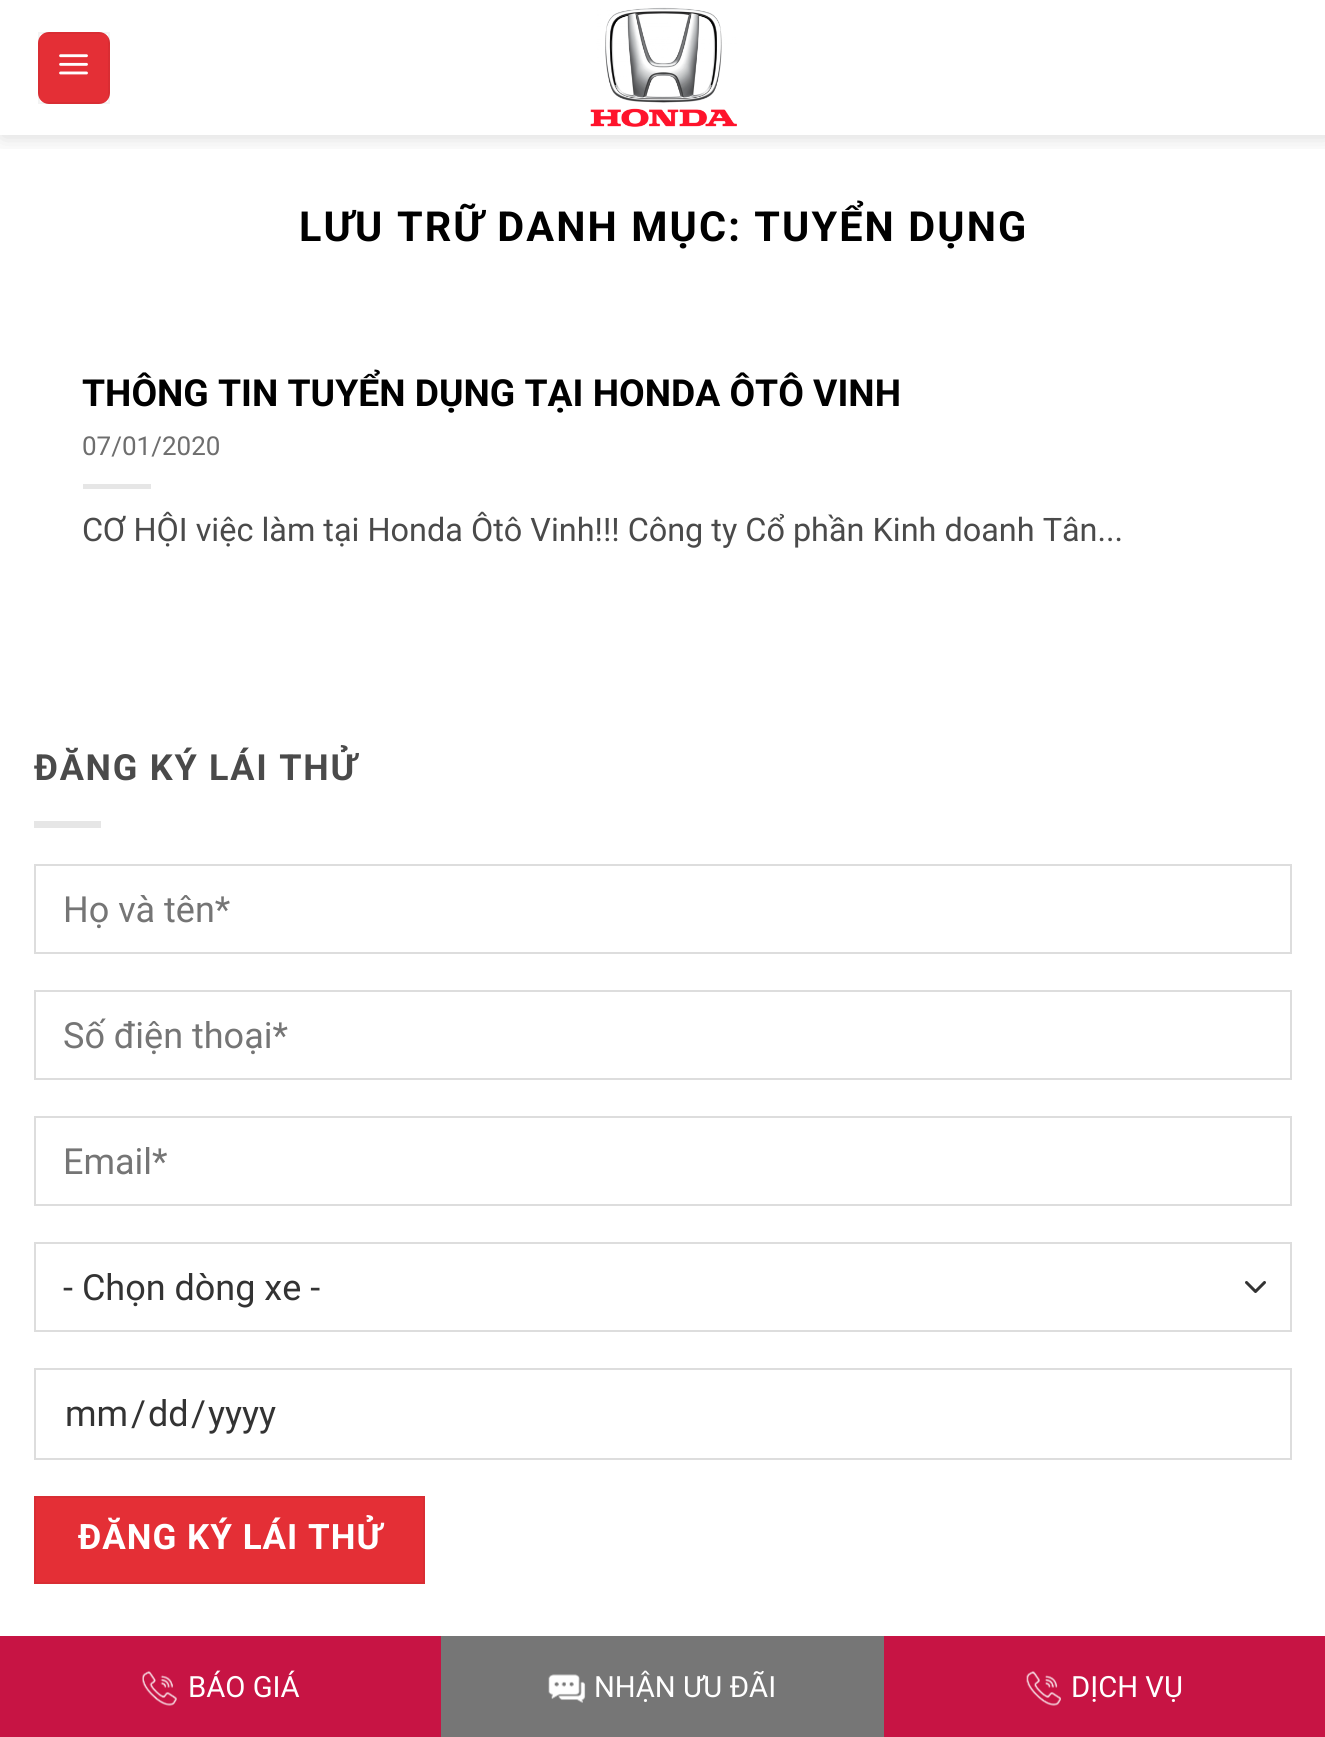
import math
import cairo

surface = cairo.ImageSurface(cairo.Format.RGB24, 1325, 1737)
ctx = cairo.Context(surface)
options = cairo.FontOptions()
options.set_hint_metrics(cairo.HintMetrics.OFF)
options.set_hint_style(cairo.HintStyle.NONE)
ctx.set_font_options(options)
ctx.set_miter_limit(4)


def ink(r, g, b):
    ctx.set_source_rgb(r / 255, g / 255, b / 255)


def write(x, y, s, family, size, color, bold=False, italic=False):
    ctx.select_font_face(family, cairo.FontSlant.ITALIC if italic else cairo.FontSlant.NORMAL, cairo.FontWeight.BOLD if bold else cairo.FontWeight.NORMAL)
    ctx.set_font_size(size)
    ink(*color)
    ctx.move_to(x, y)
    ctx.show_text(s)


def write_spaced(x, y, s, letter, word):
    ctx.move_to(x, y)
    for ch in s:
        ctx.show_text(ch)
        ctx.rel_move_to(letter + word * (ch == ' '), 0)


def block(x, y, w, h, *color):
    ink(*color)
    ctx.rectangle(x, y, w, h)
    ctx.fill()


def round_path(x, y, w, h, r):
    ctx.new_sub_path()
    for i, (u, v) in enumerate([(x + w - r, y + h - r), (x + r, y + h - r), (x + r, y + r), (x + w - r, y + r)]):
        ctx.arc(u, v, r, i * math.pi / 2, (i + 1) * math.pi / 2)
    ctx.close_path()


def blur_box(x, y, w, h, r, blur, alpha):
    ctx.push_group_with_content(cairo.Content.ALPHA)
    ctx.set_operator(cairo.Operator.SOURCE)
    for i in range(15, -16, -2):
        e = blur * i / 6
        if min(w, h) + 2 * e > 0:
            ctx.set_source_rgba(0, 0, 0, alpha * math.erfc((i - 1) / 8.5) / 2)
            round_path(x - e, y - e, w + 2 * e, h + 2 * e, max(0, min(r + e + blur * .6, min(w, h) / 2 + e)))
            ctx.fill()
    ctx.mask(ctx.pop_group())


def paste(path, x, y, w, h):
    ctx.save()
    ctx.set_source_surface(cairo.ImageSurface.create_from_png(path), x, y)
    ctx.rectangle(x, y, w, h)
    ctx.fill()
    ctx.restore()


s1 = dict(family="Roboto", size=37.25, color=(0, 0, 0), bold=True)
s2 = dict(family="Roboto", size=26, color=(110, 110, 110))
s3 = dict(family="Roboto", size=32.4, color=(74, 74, 74))
s4 = dict(family="Roboto", size=36, color=(117, 117, 117))
s5 = dict(family="Roboto", size=36, color=(51, 51, 51))
s6 = dict(family="Roboto", size=29.25, color=(255, 255, 255))

ink(255, 255, 255)
ctx.paint()
ctx.save()
ctx.rectangle(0, 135, 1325, 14)
ctx.clip()
ink(0, 0, 0)
blur_box(2, 2, 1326, 135, 0, 11, 0.15)
ctx.restore()
ink(228, 47, 54)
round_path(38, 32, 72, 72, 11)
ctx.fill()
ctx.rectangle(39, 33, 70, 70)
ctx.set_source_rgba(0, 0, 0, 0.05)
ctx.stroke()
paste("pic1.png", 59, 54, 29, 21)
paste("pic2.png", 590, 7, 147, 120)
ctx.select_font_face("Roboto", cairo.FontSlant.NORMAL, cairo.FontWeight.BOLD)
ctx.set_font_size(41.4)
ink(0, 0, 0)
write_spaced(299, 241, "LƯU TRỮ DANH MỤC: TUYỂN DỤNG", 2.1, 0)
write(82, 406, "THÔNG TIN TUYỂN DỤNG TẠI HONDA ÔTÔ VINH", **s1)
write(82, 455, "07/01/2020", **s2)
block(83, 484, 68, 5, 230, 230, 230)
write(82, 541, "CƠ HỘI việc làm tại Honda Ôtô Vinh!!! Công ty Cổ phần Kinh doanh Tân...", **s3)
ctx.select_font_face("Roboto", cairo.FontSlant.NORMAL, cairo.FontWeight.BOLD)
ctx.set_font_size(36)
write_spaced(34, 780, "ĐĂNG KÝ LÁI THỬ", 1.75, 0)
block(34, 821, 67, 7, 230, 230, 230)
ctx.rectangle(35, 865, 1256, 88)
ink(221, 221, 221)
ctx.stroke()
write(63, 922, "Họ và tên*", **s4)
ctx.rectangle(35, 991, 1256, 88)
ink(221, 221, 221)
ctx.stroke()
write(63, 1048, "Số điện thoại*", **s4)
ctx.rectangle(35, 1117, 1256, 88)
ink(221, 221, 221)
ctx.stroke()
write(63, 1174, "Email*", **s4)
ctx.new_path()
ctx.move_to(1246.5, 1282.5)
ctx.line_to(1255.5, 1291.5)
ctx.line_to(1264.5, 1282.5)
ink(51, 51, 51)
ctx.set_line_width(3)
ctx.set_line_cap(cairo.LineCap.ROUND)
ctx.set_line_join(cairo.LineJoin.ROUND)
ctx.stroke()
ctx.rectangle(35, 1243, 1256, 88)
ink(221, 221, 221)
ctx.set_line_width(2)
ctx.set_line_cap(cairo.LineCap.BUTT)
ctx.set_line_join(cairo.LineJoin.MITER)
ctx.stroke()
write(63, 1300, "- Chọn dòng xe -", **s5)
ctx.rectangle(35, 1369, 1256, 90)
ink(221, 221, 221)
ctx.stroke()
write(65, 1426, "mm", **s5)
write(131, 1426, "/", **s5)
write(148, 1426, "dd", **s5)
write(191, 1426, "/", **s5)
write(208, 1426, "yyyy", **s5)
ink(228, 47, 54)
ctx.rectangle(35, 1497, 389, 86)
ctx.fill_preserve()
ink(217, 45, 51)
ctx.stroke()
ctx.select_font_face("Roboto", cairo.FontSlant.NORMAL, cairo.FontWeight.BOLD)
ctx.set_font_size(35)
ink(255, 255, 255)
write_spaced(78, 1549, "ĐĂNG KÝ LÁI THỬ", 1, 0)
block(0, 1636, 441, 101, 199, 20, 68)
paste("pic3.png", 142, 1671, 35, 35)
write(188, 1697, "BÁO GIÁ", **s6)
block(441, 1636, 443, 101, 118, 118, 118)
paste("pic4.png", 548, 1674, 38, 29)
write(594, 1697, "NHẬN ƯU ĐÃI", **s6)
block(884, 1636, 441, 101, 199, 20, 68)
paste("pic5.png", 1026, 1671, 35, 35)
write(1071, 1697, "DỊCH VỤ", **s6)
surface.write_to_png("screenshot.png")
